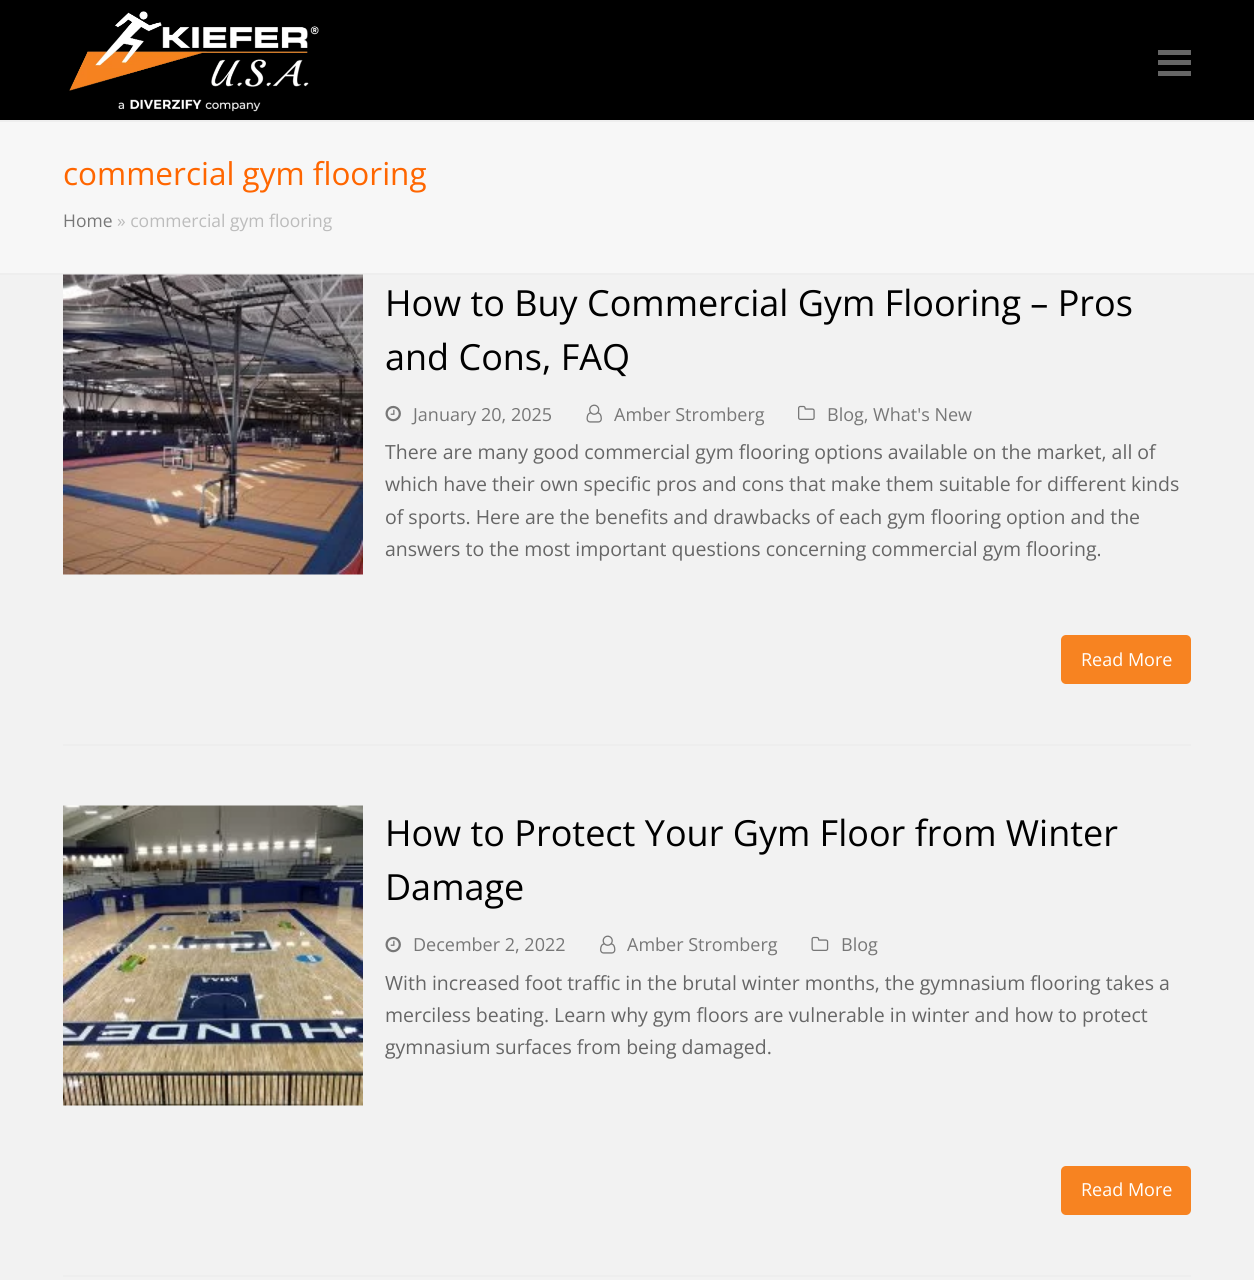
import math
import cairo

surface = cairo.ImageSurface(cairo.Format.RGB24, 1254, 1280)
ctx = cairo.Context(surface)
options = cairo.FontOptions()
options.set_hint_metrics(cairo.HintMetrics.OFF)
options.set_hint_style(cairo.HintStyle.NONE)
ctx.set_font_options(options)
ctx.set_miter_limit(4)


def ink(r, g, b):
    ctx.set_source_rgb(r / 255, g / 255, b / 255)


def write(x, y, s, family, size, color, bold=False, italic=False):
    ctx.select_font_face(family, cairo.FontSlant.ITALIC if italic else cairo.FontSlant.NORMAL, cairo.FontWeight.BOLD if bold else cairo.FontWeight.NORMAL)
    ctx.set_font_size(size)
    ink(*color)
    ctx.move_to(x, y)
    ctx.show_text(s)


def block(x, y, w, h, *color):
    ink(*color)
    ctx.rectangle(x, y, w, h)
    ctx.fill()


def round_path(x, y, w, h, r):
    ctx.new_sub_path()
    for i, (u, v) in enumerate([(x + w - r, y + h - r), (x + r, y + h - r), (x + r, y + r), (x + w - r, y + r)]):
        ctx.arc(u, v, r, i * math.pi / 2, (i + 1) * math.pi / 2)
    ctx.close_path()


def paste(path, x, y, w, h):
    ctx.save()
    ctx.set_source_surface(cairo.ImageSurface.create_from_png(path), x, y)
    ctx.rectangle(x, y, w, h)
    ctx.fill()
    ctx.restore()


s1 = dict(family="Open Sans", size=31.5, color=(255, 102, 0))
s2 = dict(family="Open Sans", size=17.5, color=(119, 119, 119))
s3 = dict(family="Open Sans", size=17.5, color=(188, 188, 188))
s4 = dict(family="Open Sans", size=36, color=(0, 0, 0))
s5 = dict(family="Open Sans", size=18, color=(119, 119, 119))
s6 = dict(family="Open Sans", size=19.5, color=(102, 102, 102))
s7 = dict(family="Open Sans", size=18, color=(255, 255, 255))

ink(242, 242, 242)
ctx.paint()
block(0, 0, 1254, 120, 0, 0, 0)
paste("pic1.png", 69, 11, 250, 101)
block(1158, 60, 33, 5, 102, 102, 102)
block(1158, 50, 33, 5, 102, 102, 102)
block(1158, 71, 33, 5, 102, 102, 102)
block(0, 122, 1254, 151, 247, 247, 247)
block(0, 120, 1254, 2, 238, 238, 238)
block(0, 273, 1254, 2, 238, 238, 238)
write(63, 185, "commercial gym flooring", **s1)
write(63, 227, "Home", **s2)
write(117, 227, "» commercial gym flooring", **s3)
block(63, 744, 1128, 2, 238, 238, 238)
paste("pic2.png", 63, 274, 300, 301)
write(385, 316, "How to Buy Commercial Gym Flooring – Pros", **s4)
write(385, 370, "and Cons, FAQ", **s4)
paste("pic3.png", 385, 405, 16, 17)
write(413, 421, "January 20, 2025", **s5)
paste("pic4.png", 586, 404, 16, 19)
write(614, 421, "Amber Stromberg", **s5)
paste("pic5.png", 798, 405, 17, 15)
write(827, 421, "Blog, What's New", **s5)
write(385, 459, "There are many good commercial gym flooring options available on the market, all of", **s6)
write(385, 491, "which have their own specific pros and cons that make them suitable for different kinds", **s6)
write(385, 524, "of sports. Here are the benefits and drawbacks of each gym flooring option and the", **s6)
write(385, 556, "answers to the most important questions concerning commercial gym flooring.", **s6)
ink(247, 131, 33)
round_path(1061, 635, 130, 49, 5)
ctx.fill()
write(1081, 666, "Read More", **s7)
block(63, 1275, 1128, 2, 238, 238, 238)
paste("pic6.png", 63, 805, 300, 301)
write(385, 846, "How to Protect Your Gym Floor from Winter", **s4)
write(385, 900, "Damage", **s4)
paste("pic3.png", 385, 936, 16, 17)
write(413, 951, "December 2, 2022", **s5)
paste("pic7.png", 600, 935, 16, 19)
write(627, 951, "Amber Stromberg", **s5)
paste("pic8.png", 811, 936, 18, 15)
write(841, 951, "Blog", **s5)
write(385, 990, "With increased foot traffic in the brutal winter months, the gymnasium flooring takes a", **s6)
write(385, 1022, "merciless beating. Learn why gym floors are vulnerable in winter and how to protect", **s6)
write(385, 1054, "gymnasium surfaces from being damaged.", **s6)
ink(247, 131, 33)
round_path(1061, 1166, 130, 49, 5)
ctx.fill()
write(1081, 1196, "Read More", **s7)
surface.write_to_png("screenshot.png")
